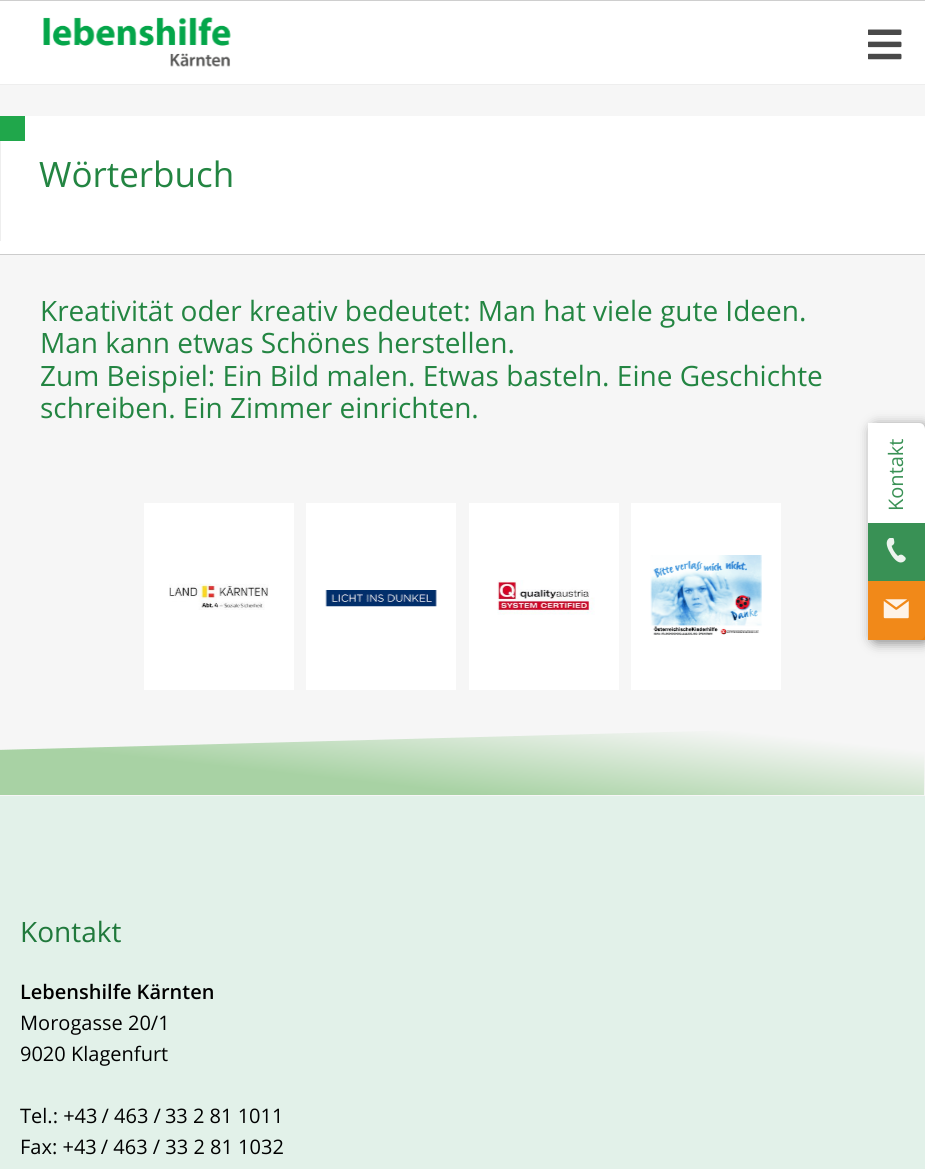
import math
import cairo

surface = cairo.ImageSurface(cairo.Format.RGB24, 925, 1169)
ctx = cairo.Context(surface)
options = cairo.FontOptions()
options.set_hint_metrics(cairo.HintMetrics.OFF)
options.set_hint_style(cairo.HintStyle.NONE)
ctx.set_font_options(options)
ctx.set_miter_limit(4)


def ink(r, g, b):
    ctx.set_source_rgb(r / 255, g / 255, b / 255)


def write(x, y, s, family, size, color, bold=False, italic=False):
    ctx.select_font_face(family, cairo.FontSlant.ITALIC if italic else cairo.FontSlant.NORMAL, cairo.FontWeight.BOLD if bold else cairo.FontWeight.NORMAL)
    ctx.set_font_size(size)
    ink(*color)
    ctx.move_to(x, y)
    ctx.show_text(s)


def block(x, y, w, h, *color):
    ink(*color)
    ctx.rectangle(x, y, w, h)
    ctx.fill()


def round_path(x, y, w, h, r):
    ctx.new_sub_path()
    for i, (u, v) in enumerate([(x + w - r, y + h - r), (x + r, y + h - r), (x + r, y + r), (x + w - r, y + r)]):
        ctx.arc(u, v, r, i * math.pi / 2, (i + 1) * math.pi / 2)
    ctx.close_path()


def blur_box(x, y, w, h, r, blur, alpha):
    ctx.push_group_with_content(cairo.Content.ALPHA)
    ctx.set_operator(cairo.Operator.SOURCE)
    for i in range(15, -16, -2):
        e = blur * i / 6
        if min(w, h) + 2 * e > 0:
            ctx.set_source_rgba(0, 0, 0, alpha * math.erfc((i - 1) / 8.5) / 2)
            round_path(x - e, y - e, w + 2 * e, h + 2 * e, max(0, min(r + e + blur * .6, min(w, h) / 2 + e)))
            ctx.fill()
    ctx.mask(ctx.pop_group())


def paste(path, x, y, w, h):
    ctx.save()
    ctx.set_source_surface(cairo.ImageSurface.create_from_png(path), x, y)
    ctx.rectangle(x, y, w, h)
    ctx.fill()
    ctx.restore()


s1 = dict(family="Open Sans", size=35, color=(35, 133, 66))
s2 = dict(family="Open Sans", size=28, color=(35, 133, 66))
s3 = dict(family="Open Sans", size=28, color=(32, 121, 60))
s4 = dict(family="Open Sans SemiBold", size=20, color=(0, 0, 0))
s5 = dict(family="Open Sans", size=20, color=(0, 0, 0))
s6 = dict(family="Open Sans", size=20, color=(57, 145, 85))

ink(246, 246, 246)
ctx.paint()
block(0, 0, 925, 1, 206, 206, 206)
block(0, 84, 925, 1, 238, 238, 238)
block(0, 1, 925, 83, 255, 255, 255)
paste("pic1.png", 43, 17, 188, 50)
paste("pic2.png", 868, 29, 34, 31)
block(1, 116, 924, 125, 255, 255, 255)
block(0, 141, 1, 100, 238, 238, 238)
block(0, 116, 25, 25, 32, 167, 75)
write(39, 187, "Wörterbuch", **s1)
block(0, 241, 925, 13, 255, 255, 255)
block(0, 254, 925, 1, 204, 204, 204)
write(40, 321, "Kreativität oder kreativ bedeutet: Man hat viele gute Ideen.", **s2)
write(40, 353, "Man kann etwas Schönes herstellen.", **s2)
write(40, 386, "Zum Beispiel: Ein Bild malen. Etwas basteln. Eine Geschichte", **s2)
write(40, 418, "schreiben. Ein Zimmer einrichten.", **s2)
block(144, 503, 150, 187, 255, 255, 255)
paste("pic3.png", 169, 583, 100, 27)
block(306, 503, 150, 187, 255, 255, 255)
paste("pic4.png", 325, 590, 112, 17)
block(469, 503, 150, 187, 255, 255, 255)
paste("pic5.png", 497, 580, 98, 35)
block(631, 503, 150, 187, 255, 255, 255)
paste("pic6.png", 650, 555, 112, 80)
block(0, 796, 925, 373, 226, 241, 233)
gradient = cairo.LinearGradient(-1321, 777, -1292, 510)
gradient.add_color_stop_rgba(0, 0.659, 0.824, 0.643, 1)
gradient.add_color_stop_rgba(0.66, 0.659, 0.824, 0.643, 1)
gradient.add_color_stop_rgba(1, 0.965, 0.965, 0.965, 1)
ctx.set_source(gradient)
ctx.new_path()
ctx.move_to(924, 795)
ctx.line_to(925, 725)
ctx.line_to(-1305, 785)
ctx.line_to(-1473, 795)
ctx.close_path()
ctx.fill()
write(20, 942, "Kontakt", **s3)
write(20, 999, "Lebenshilfe Kärnten", **s4)
write(20, 1030, "Morogasse 20/1", **s5)
write(20, 1061, "9020 Klagenfurt", **s5)
write(20, 1123, "Tel.: +43 / 463 / 33 2 81 1011", **s5)
write(20, 1154, "Fax: +43 / 463 / 33 2 81 1032", **s5)
ink(33, 33, 33)
blur_box(871, 425, 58, 218, 6, 6, 0.5)
ink(255, 255, 255)
ctx.new_path()
ctx.move_to(868, 423)
ctx.line_to(919, 423)
ctx.curve_to(922.5, 423, 925, 425.5, 925, 429)
ctx.line_to(925, 634)
ctx.curve_to(925, 637.5, 922.5, 640, 919, 640)
ctx.line_to(868, 640)
ctx.close_path()
ctx.fill()
ctx.save()
ctx.translate(903, 511)
ctx.rotate(-90 * math.pi / 180)
write(0, 0, "Kontakt", **s6)
ctx.restore()
block(868, 523, 57, 58, 57, 145, 85)
paste("pic7.png", 886, 538, 20, 25)
ctx.set_source_rgba(0.941, 0.49, 0, 0.9)
ctx.rectangle(868, 581, 57, 59)
ctx.fill()
paste("pic8.png", 883, 599, 26, 20)
surface.write_to_png("screenshot.png")
